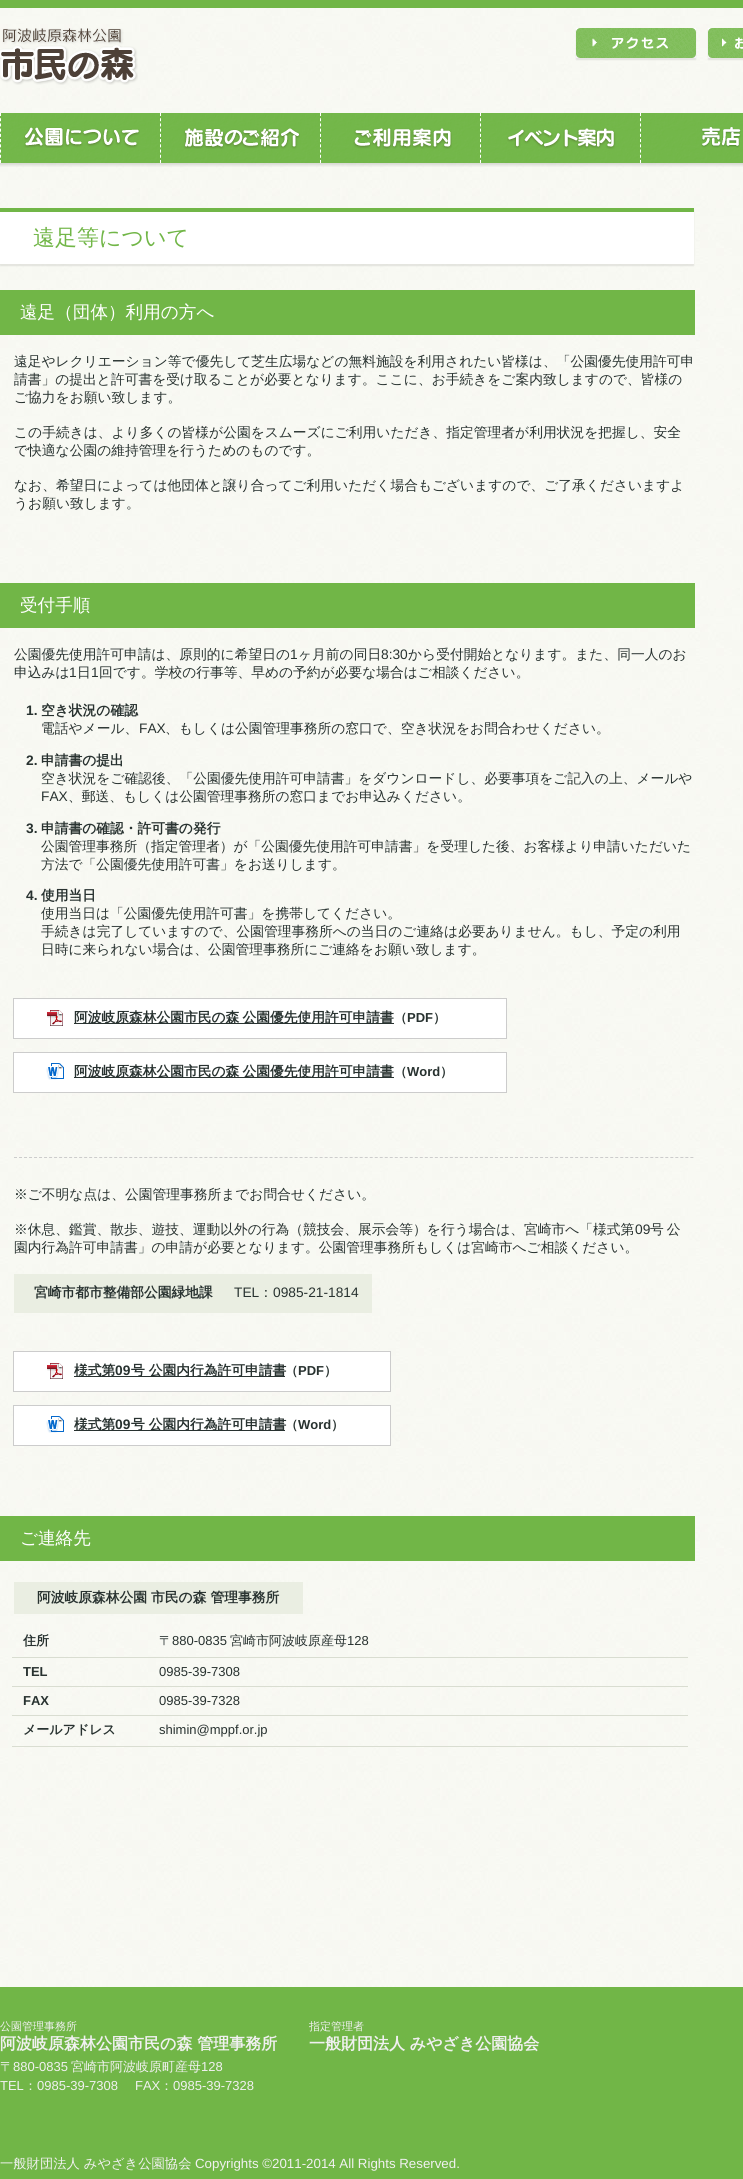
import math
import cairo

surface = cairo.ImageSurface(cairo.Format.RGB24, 743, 2179)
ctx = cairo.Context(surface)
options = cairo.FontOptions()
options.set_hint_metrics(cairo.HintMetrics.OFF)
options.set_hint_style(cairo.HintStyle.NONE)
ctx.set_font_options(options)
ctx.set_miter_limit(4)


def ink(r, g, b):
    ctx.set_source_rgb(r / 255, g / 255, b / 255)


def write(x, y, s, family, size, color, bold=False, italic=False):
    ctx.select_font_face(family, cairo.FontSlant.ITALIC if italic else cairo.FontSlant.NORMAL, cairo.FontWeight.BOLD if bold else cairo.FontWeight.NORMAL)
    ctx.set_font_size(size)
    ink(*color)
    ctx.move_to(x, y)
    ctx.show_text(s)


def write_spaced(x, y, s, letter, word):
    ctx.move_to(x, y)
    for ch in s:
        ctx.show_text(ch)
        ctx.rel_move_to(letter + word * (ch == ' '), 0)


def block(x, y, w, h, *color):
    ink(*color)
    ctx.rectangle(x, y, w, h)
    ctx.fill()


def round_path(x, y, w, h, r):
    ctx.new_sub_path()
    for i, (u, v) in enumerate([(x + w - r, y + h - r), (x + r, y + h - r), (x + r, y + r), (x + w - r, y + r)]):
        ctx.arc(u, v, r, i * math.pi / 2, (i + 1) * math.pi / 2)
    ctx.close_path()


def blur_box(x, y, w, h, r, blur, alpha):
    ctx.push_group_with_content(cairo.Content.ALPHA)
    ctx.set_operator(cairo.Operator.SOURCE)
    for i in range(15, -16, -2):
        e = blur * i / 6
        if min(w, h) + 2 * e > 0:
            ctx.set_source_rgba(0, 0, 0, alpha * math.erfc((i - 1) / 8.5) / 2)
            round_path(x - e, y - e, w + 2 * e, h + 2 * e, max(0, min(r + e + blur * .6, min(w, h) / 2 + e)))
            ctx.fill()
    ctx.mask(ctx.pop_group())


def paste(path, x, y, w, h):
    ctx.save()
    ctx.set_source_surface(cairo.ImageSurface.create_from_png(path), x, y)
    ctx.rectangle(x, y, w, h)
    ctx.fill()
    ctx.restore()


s1 = dict(family="WenQuanYi Zen Hei Medium", size=22, color=(113, 182, 71))
s2 = dict(family="WenQuanYi Zen Hei Medium", size=17.6, color=(255, 255, 255))
s3 = dict(family="WenQuanYi Zen Hei Medium", size=13.75, color=(40, 50, 48))
s4 = dict(family="Liberation Sans", size=13.75, color=(40, 50, 48))
s5 = dict(family="Liberation Sans", size=13.75, color=(40, 50, 48), bold=True)
s6 = dict(family="WenQuanYi Zen Hei", size=13.75, color=(40, 50, 48), bold=True)
s7 = dict(family="WenQuanYi Zen Hei", size=13, color=(40, 50, 48), bold=True)
s8 = dict(family="Liberation Sans", size=13, color=(40, 50, 48), bold=True)
s9 = dict(family="WenQuanYi Zen Hei Medium", size=13, color=(40, 50, 48))
s10 = dict(family="Liberation Sans", size=13, color=(40, 50, 48))
s11 = dict(family="WenQuanYi Zen Hei Medium", size=11, color=(240, 240, 240))
s12 = dict(family="WenQuanYi Zen Hei", size=16, color=(240, 240, 240), bold=True)
s13 = dict(family="WenQuanYi Zen Hei Medium", size=13, color=(240, 240, 240))
s14 = dict(family="Liberation Sans", size=13, color=(240, 240, 240))
s15 = dict(family="WenQuanYi Zen Hei Medium", size=13.3, color=(240, 240, 240))
s16 = dict(family="Liberation Sans", size=13.3, color=(240, 240, 240))

ink(255, 255, 255)
ctx.paint()
paste("pic1.png", 0, 8, 743, 1979)
block(0, 0, 743, 8, 113, 182, 71)
paste("pic2.png", 0, 28, 138, 57)
ink(0, 0, 0)
blur_box(576, 30, 120, 30, 0, 0.5, 0.08)
paste("pic3.png", 576, 28, 120, 30)
blur_box(708, 30, 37, 30, 0, 0.5, 0.08)
paste("pic4.png", 708, 28, 35, 30)
paste("pic5.png", 0, 113, 743, 54)
ctx.new_path()
ctx.move_to(0.5, 113)
ctx.line_to(0.5, 163)
ink(255, 255, 255)
ctx.set_line_width(1)
ctx.set_dash([3, 2.22])
ctx.stroke()
paste("pic6.png", 24, 127, 116, 21)
ctx.new_path()
ctx.move_to(160.5, 113)
ctx.line_to(160.5, 163)
ctx.stroke()
paste("pic7.png", 183, 128, 117, 21)
ctx.new_path()
ctx.move_to(320.5, 113)
ctx.line_to(320.5, 163)
ctx.stroke()
paste("pic8.png", 353, 128, 99, 21)
ctx.new_path()
ctx.move_to(480.5, 113)
ctx.line_to(480.5, 163)
ctx.stroke()
paste("pic9.png", 507, 128, 109, 21)
ctx.new_path()
ctx.move_to(640.5, 113)
ctx.line_to(640.5, 163)
ctx.stroke()
paste("pic10.png", 701, 127, 40, 21)
ink(0, 0, 0)
blur_box(0, 210, 694, 56, 0, 0.5, 0.08)
block(0, 212, 694, 52, 255, 255, 255)
block(0, 208, 694, 4, 113, 182, 71)
write(33, 245, "遠足等について", **s1)
block(0, 290, 695, 45, 113, 182, 71)
write(20, 318, "遠足（団体）利用の方へ", **s2)
write(14, 366, "遠足やレクリエーション等で優先して芝生広場などの無料施設を利用されたい皆様は、「公園優先使用許可申", **s3)
write(14, 384, "請書」の提出と許可書を受け取ることが必要となります。ここに、お手続きをご案内致しますので、皆様の", **s3)
write(14, 402, "ご協力をお願い致します。", **s3)
write(14, 437, "この手続きは、より多くの皆様が公園をスムーズにご利用いただき、指定管理者が利用状況を把握し、安全", **s3)
write(14, 455, "で快適な公園の維持管理を行うためのものです。", **s3)
write(14, 490, "なお、希望日によっては他団体と譲り合ってご利用いただく場合もございますので、ご了承くださいますよ", **s3)
write(14, 508, "うお願い致します。", **s3)
block(0, 583, 695, 45, 113, 182, 71)
write(20, 611, "受付手順", **s2)
write(14, 659, "公園優先使用許可申請は、原則的に希望日の", **s3)
write(290, 659, "1", **s4)
write(298, 659, "ヶ月前の同日", **s3)
write(381, 659, "8:30", **s4)
write(408, 659, "から受付開始となります。また、同一人のお", **s3)
write(14, 677, "申込みは", **s3)
write(69, 677, "1", **s4)
write(77, 677, "日", **s3)
write(91, 677, "1", **s4)
write(99, 677, "回です。学校の行事等、早めの予約が必要な場合はご相談ください。", **s3)
write(26, 715, "1.", **s5)
write(41, 715, "空き状況の確認", **s6)
write(41, 733, "電話やメール、", **s3)
write(139, 733, "FAX", **s4)
write(165, 733, "、もしくは公園管理事務所の窓口で、空き状況をお問合わせください。", **s3)
write(26, 765, "2.", **s5)
write(41, 765, "申請書の提出", **s6)
write(41, 783, "空き状況をご確認後、「公園優先使用許可申請書」をダウンロードし、必要事項をご記入の上、メールや", **s3)
write(41, 801, "FAX", **s4)
write(68, 801, "、郵送、もしくは公園管理事務所の窓口までお申込みください。", **s3)
write(26, 833, "3.", **s5)
write(41, 833, "申請書の確認・許可書の発行", **s6)
write(41, 851, "公園管理事務所（指定管理者）が「公園優先使用許可申請書」を受理した後、お客様より申請いただいた", **s3)
write(41, 869, "方法で「公園優先使用許可書」をお送りします。", **s3)
write(26, 900, "4.", **s5)
write(41, 900, "使用当日", **s6)
write(41, 918, "使用当日は「公園優先使用許可書」を携帯してください。", **s3)
write(41, 936, "手続きは完了していますので、公園管理事務所への当日のご連絡は必要ありません。もし、予定の利用", **s3)
write(41, 954, "日時に来られない場合は、公園管理事務所にご連絡をお願い致します。", **s3)
ink(255, 255, 255)
ctx.rectangle(13.5, 998.5, 493, 40)
ctx.fill_preserve()
ink(204, 204, 204)
ctx.set_dash([])
ctx.stroke()
paste("pic11.png", 47, 1010, 16, 16)
block(74, 1023, 320, 1, 40, 50, 48)
ctx.select_font_face("WenQuanYi Zen Hei", cairo.FontSlant.NORMAL, cairo.FontWeight.BOLD)
write_spaced(74, 1022, "阿波岐原森林公園市民の森 公園優先使用許可申請書", 0, -1)
write(394, 1022, "（", **s7)
write(407, 1022, "PDF", **s8)
write(433, 1022, "）", **s7)
ink(255, 255, 255)
ctx.rectangle(13.5, 1052.5, 493, 40)
ctx.fill_preserve()
ink(204, 204, 204)
ctx.stroke()
paste("pic12.png", 46, 1063, 18, 17)
block(74, 1077, 320, 1, 40, 50, 48)
ctx.set_font_size(13.75)
write_spaced(74, 1076, "阿波岐原森林公園市民の森 公園優先使用許可申請書", 0, -1)
write(394, 1076, "（", **s7)
write(407, 1076, "Word", **s8)
write(440, 1076, "）", **s7)
ctx.new_path()
ctx.move_to(14, 1157.5)
ctx.line_to(694, 1157.5)
ink(204, 204, 204)
ctx.set_dash([3, 2.01])
ctx.stroke()
write(14, 1199, "※ご不明な点は、公園管理事務所までお問合せください。", **s3)
write(14, 1234, "※休息、鑑賞、散歩、遊技、運動以外の行為（競技会、展示会等）を行う場合は、宮崎市へ「様式第", **s3)
write(635, 1234, "09", **s4)
ctx.select_font_face("WenQuanYi Zen Hei Medium")
write_spaced(650, 1234, "号 公", 0, -1)
write(14, 1252, "園内行為許可申請書」の申請が必要となります。公園管理事務所もしくは宮崎市へご相談ください。", **s3)
block(14, 1274, 358, 39, 234, 238, 226)
write(34, 1297, "宮崎市都市整備部公園緑地課", **s6)
write(234, 1297, "TEL", **s4)
write(259, 1297, "：", **s3)
write(273, 1297, "0985-21-1814", **s4)
ink(255, 255, 255)
ctx.rectangle(13.5, 1351.5, 377, 40)
ctx.fill_preserve()
ink(204, 204, 204)
ctx.set_dash([])
ctx.stroke()
paste("pic11.png", 47, 1363, 16, 16)
block(74, 1376, 211, 1, 40, 50, 48)
write(74, 1375, "様式第", **s6)
write(115, 1375, "09", **s5)
write(131, 1375, "号 公園内行為許可申請書", **s6)
write(285, 1375, "（", **s7)
write(298, 1375, "PDF", **s8)
write(324, 1375, "）", **s7)
ink(255, 255, 255)
ctx.rectangle(13.5, 1405.5, 377, 40)
ctx.fill_preserve()
ink(204, 204, 204)
ctx.stroke()
paste("pic12.png", 46, 1416, 18, 17)
block(74, 1430, 211, 1, 40, 50, 48)
write(74, 1429, "様式第", **s6)
write(115, 1429, "09", **s5)
write(131, 1429, "号 公園内行為許可申請書", **s6)
write(285, 1429, "（", **s7)
write(298, 1429, "Word", **s8)
write(331, 1429, "）", **s7)
block(0, 1516, 695, 45, 113, 182, 71)
write(20, 1544, "ご連絡先", **s2)
block(14, 1582, 289, 32, 234, 238, 226)
write(37, 1602, "阿波岐原森林公園 市民の森 管理事務所", **s6)
write(23, 1645, "住所", **s7)
block(12, 1657, 676, 1, 217, 221, 209)
write(159, 1645, "〒", **s9)
write(172, 1645, "880-0835", **s10)
write(230, 1645, "宮崎市阿波岐原産母", **s9)
write(347, 1645, "128", **s10)
write(23, 1676, "TEL", **s8)
block(12, 1686, 676, 1, 217, 221, 209)
write(159, 1676, "0985-39-7308", **s10)
write(23, 1705, "FAX", **s8)
block(12, 1715, 676, 1, 217, 221, 209)
write(159, 1705, "0985-39-7328", **s10)
write(23, 1734, "メールアドレス", **s7)
block(12, 1746, 676, 1, 217, 221, 209)
write(159, 1734, "shimin@mppf.or.jp", **s10)
block(0, 1987, 743, 192, 113, 182, 71)
write(0, 2030, "公園管理事務所", **s11)
write(0, 2049, "阿波岐原森林公園市民の森 管理事務所", **s12)
write(0, 2071, "〒", **s13)
write(13, 2071, "880-0835", **s14)
write(71, 2071, "宮崎市阿波岐原町産母", **s13)
write(201, 2071, "128", **s14)
write(0, 2090, "TEL", **s14)
write(24, 2090, "：", **s13)
write(37, 2090, "0985-39-7308", **s14)
write(135, 2090, "FAX", **s14)
write(160, 2090, "：", **s13)
write(173, 2090, "0985-39-7328", **s14)
write(309, 2030, "指定管理者", **s11)
write(309, 2049, "一般財団法人 みやざき公園協会", **s12)
write(0, 2168, "一般財団法人 みやざき公園協会", **s15)
write(195, 2168, "Copyrights ©2011-2014 All Rights Reserved.", **s16)
surface.write_to_png("screenshot.png")
